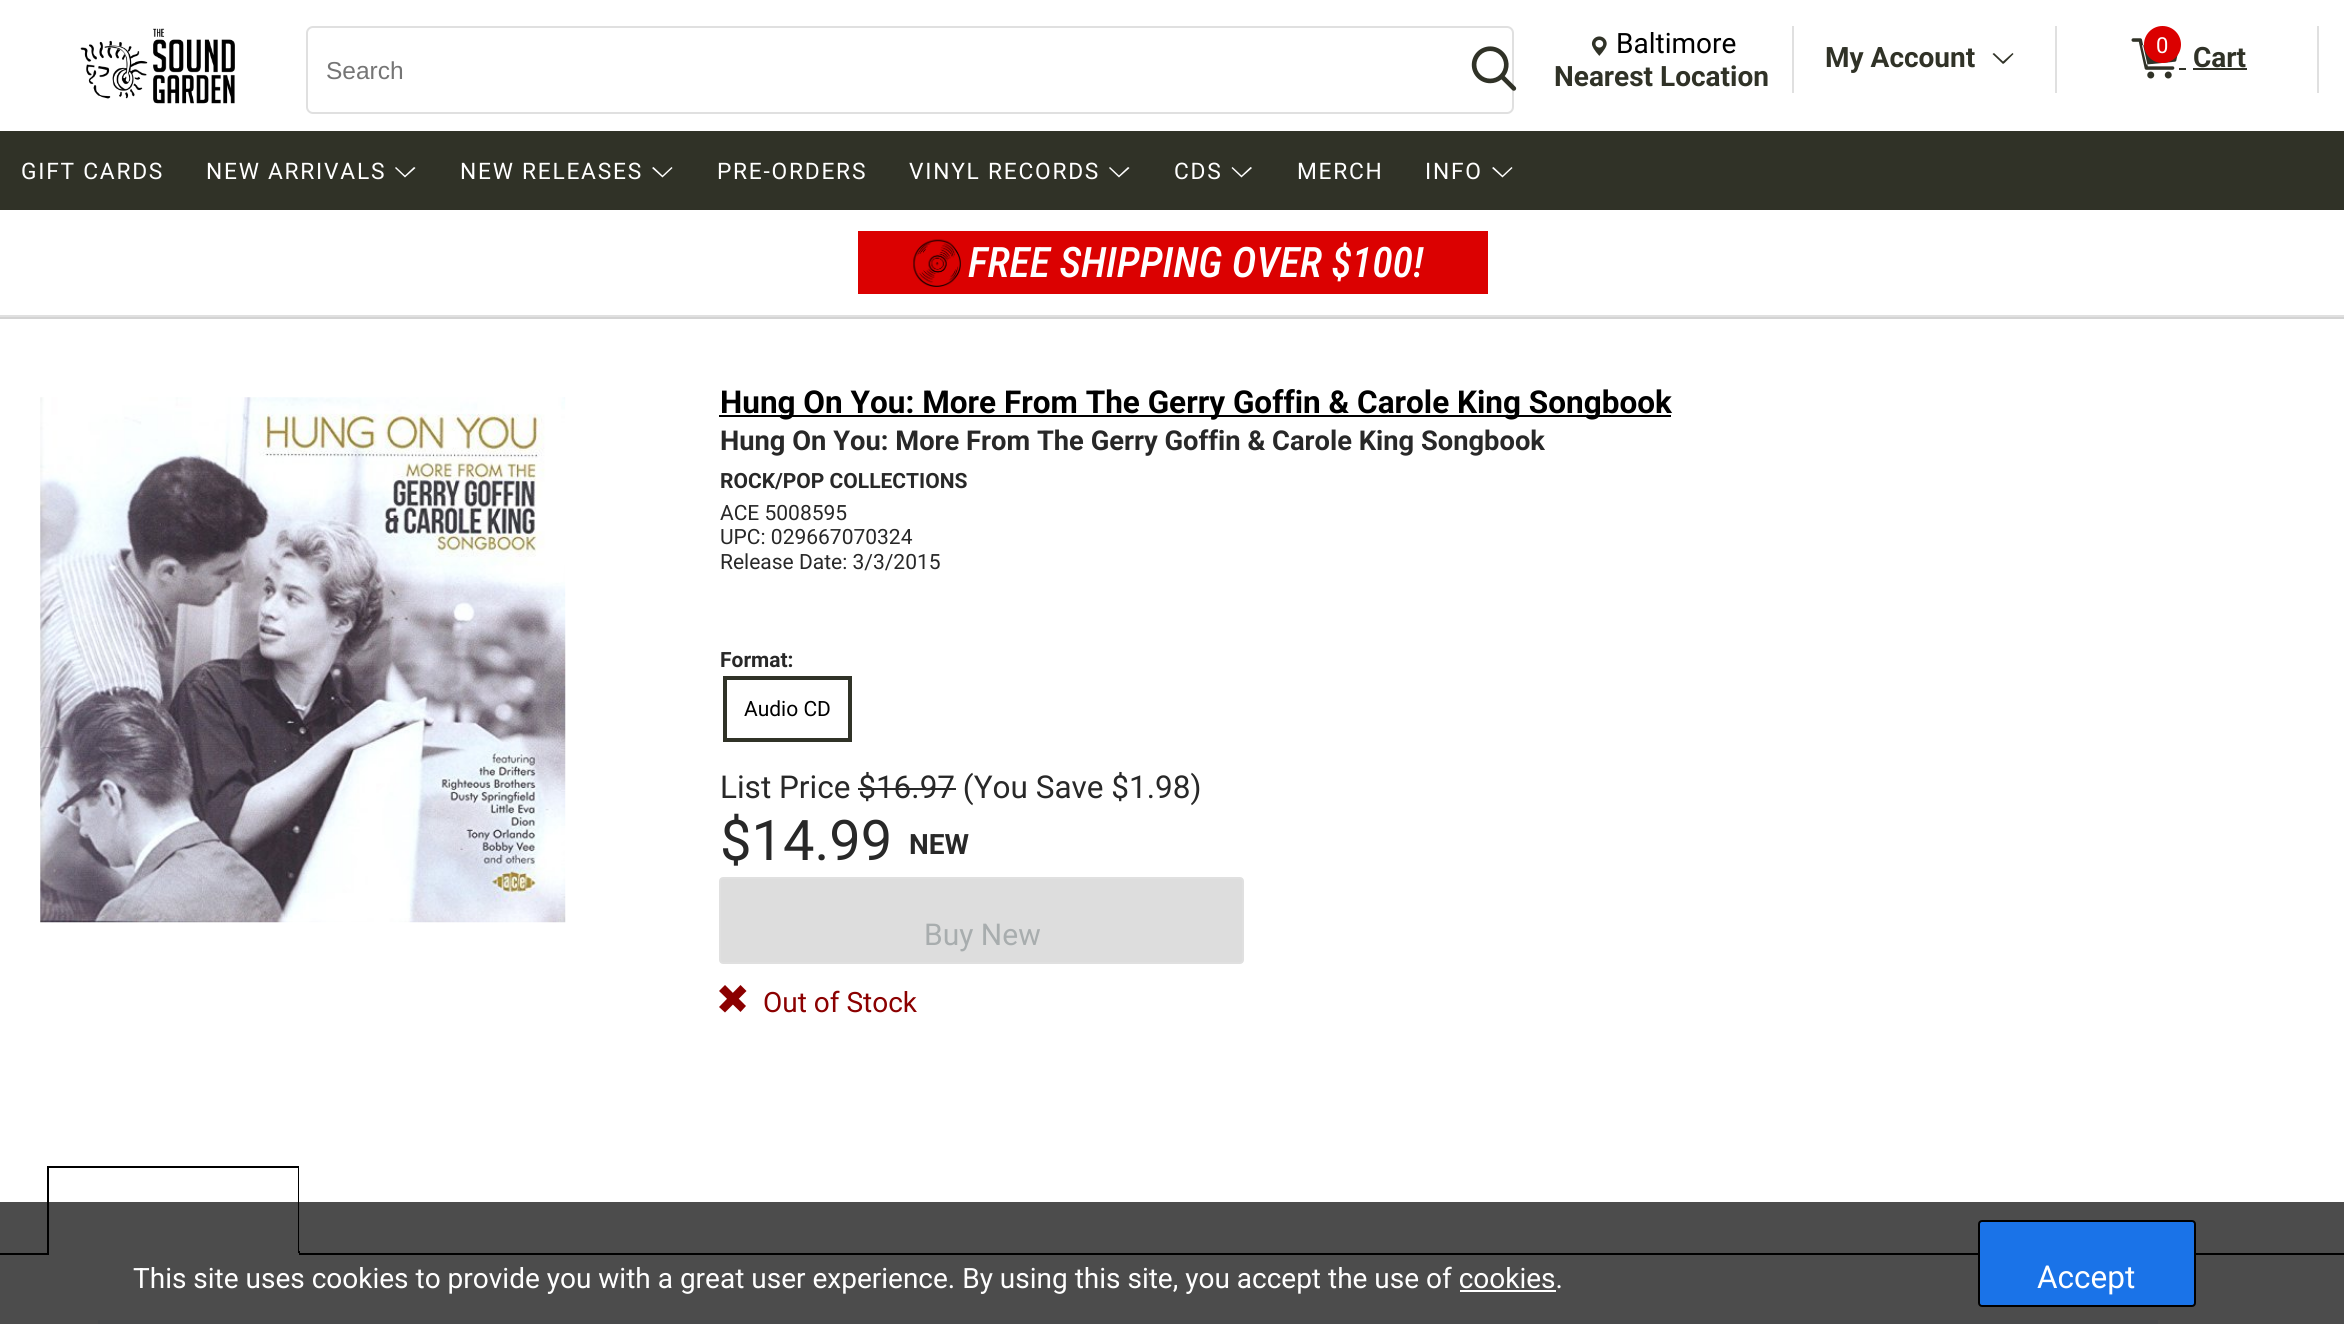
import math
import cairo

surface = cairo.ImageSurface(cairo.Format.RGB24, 2344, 1324)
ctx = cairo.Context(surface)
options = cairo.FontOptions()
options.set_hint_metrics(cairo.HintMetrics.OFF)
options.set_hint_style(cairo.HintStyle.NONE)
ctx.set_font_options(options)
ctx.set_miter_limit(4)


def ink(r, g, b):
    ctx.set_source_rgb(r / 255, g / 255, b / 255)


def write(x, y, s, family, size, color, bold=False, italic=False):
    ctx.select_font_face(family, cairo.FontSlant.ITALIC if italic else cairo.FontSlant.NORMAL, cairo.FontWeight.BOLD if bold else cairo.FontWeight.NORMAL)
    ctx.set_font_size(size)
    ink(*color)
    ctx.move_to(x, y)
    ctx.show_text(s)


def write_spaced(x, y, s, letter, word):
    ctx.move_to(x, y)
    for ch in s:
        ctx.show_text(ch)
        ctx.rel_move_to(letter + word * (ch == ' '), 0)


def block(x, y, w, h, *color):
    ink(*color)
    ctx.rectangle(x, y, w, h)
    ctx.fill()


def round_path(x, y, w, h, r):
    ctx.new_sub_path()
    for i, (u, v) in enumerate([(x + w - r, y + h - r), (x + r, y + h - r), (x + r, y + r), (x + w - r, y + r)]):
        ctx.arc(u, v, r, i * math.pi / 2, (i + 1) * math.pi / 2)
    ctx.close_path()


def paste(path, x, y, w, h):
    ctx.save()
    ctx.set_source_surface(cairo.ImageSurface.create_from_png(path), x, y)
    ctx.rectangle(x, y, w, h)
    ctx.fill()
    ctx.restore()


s1 = dict(family="Liberation Sans", size=24.5, color=(117, 117, 117))
s2 = dict(family="Roboto", size=28, color=(0, 0, 0))
s3 = dict(family="Roboto", size=28, color=(48, 50, 39), bold=True)
s4 = dict(family="Roboto", size=22, color=(255, 255, 255))
s5 = dict(family="Roboto Condensed Medium", size=42, color=(255, 255, 255), italic=True)
s6 = dict(family="Roboto", size=31.5, color=(0, 0, 0), bold=True)
s7 = dict(family="Roboto", size=27.3, color=(40, 40, 40), bold=True)
s8 = dict(family="Roboto", size=21, color=(40, 40, 40), bold=True)
s9 = dict(family="Roboto", size=21, color=(40, 40, 40))
s10 = dict(family="Roboto", size=21, color=(0, 0, 0))
s11 = dict(family="Roboto", size=31.5, color=(40, 40, 40))
s12 = dict(family="Roboto", size=56, color=(40, 40, 40))
s13 = dict(family="Roboto", size=28, color=(40, 40, 40), bold=True)
s14 = dict(family="Roboto", size=30, color=(168, 173, 174))
s15 = dict(family="Roboto", size=28, color=(139, 0, 0))
s16 = dict(family="Roboto", size=28, color=(255, 255, 255))
s17 = dict(family="Roboto", size=31.5, color=(255, 255, 255))

ink(255, 255, 255)
ctx.paint()
paste("pic1.png", 80, 28, 155, 76)
round_path(307, 27, 1206, 86, 6)
ink(224, 224, 224)
ctx.stroke()
write(326, 79, "Search", **s1)
paste("pic2.png", 1471, 46, 46, 45)
block(1792, 26, 2, 67, 224, 224, 224)
paste("pic3.png", 1591, 36, 16, 20)
write(1616, 53, "Baltimore", **s2)
write(1554, 86, "Nearest Location", **s3)
block(2055, 26, 2, 67, 224, 224, 224)
write(1825, 67, "My Account", **s3)
ctx.new_path()
ctx.move_to(2004.5, 63)
ctx.line_to(2013.5, 54)
ctx.line_to(2012.5, 53)
ctx.line_to(2003, 61.5)
ctx.line_to(1994, 53)
ctx.line_to(1992.5, 54)
ctx.line_to(2003, 64)
ctx.close_path()
ctx.fill()
block(2317, 26, 2, 67, 224, 224, 224)
paste("pic4.png", 2131, 38, 48, 41)
ink(219, 0, 0)
ctx.arc(2162.5, 44.5, 18.5, 0, 2 * math.pi)
ctx.fill()
write(2156, 53, "0", **s4)
write(2193, 67, "Cart", **s3)
block(2193, 68, 54, 2, 48, 50, 39)
block(2179, 68, 7, 2, 48, 50, 39)
block(0, 131, 2344, 79, 48, 50, 39)
ctx.select_font_face("Roboto")
ctx.set_font_size(22.75)
ink(255, 255, 255)
write_spaced(21, 179, "GIFT CARDS", 1.75, 0)
write_spaced(206, 179, "NEW ARRIVALS", 1.75, 0)
ctx.new_path()
ctx.move_to(406, 176.5)
ctx.line_to(415.5, 168)
ctx.line_to(414, 167)
ctx.line_to(405, 175.5)
ctx.line_to(396, 167)
ctx.line_to(395, 168)
ctx.line_to(405, 177.5)
ctx.close_path()
ctx.fill()
write_spaced(460, 179, "NEW RELEASES", 1.75, 0)
ctx.new_path()
ctx.move_to(663.5, 176.5)
ctx.line_to(672.5, 168)
ctx.line_to(671.5, 167)
ctx.line_to(662.5, 175.5)
ctx.line_to(653.5, 167)
ctx.line_to(652, 168)
ctx.line_to(662.5, 177.5)
ctx.close_path()
ctx.fill()
write_spaced(717, 179, "PRE-ORDERS", 1.75, 0)
write_spaced(909, 179, "VINYL RECORDS", 1.75, 0)
ctx.new_path()
ctx.move_to(1120, 176.5)
ctx.line_to(1129.5, 168)
ctx.line_to(1128, 167)
ctx.line_to(1119, 175.5)
ctx.line_to(1110, 167)
ctx.line_to(1109, 168)
ctx.line_to(1119, 177.5)
ctx.close_path()
ctx.fill()
write_spaced(1174, 179, "CDS", 1.75, 0)
ctx.new_path()
ctx.move_to(1242.5, 176.5)
ctx.line_to(1252, 168)
ctx.line_to(1250.5, 167)
ctx.line_to(1241.5, 175.5)
ctx.line_to(1232.5, 167)
ctx.line_to(1231.5, 168)
ctx.line_to(1241.5, 177.5)
ctx.close_path()
ctx.fill()
write_spaced(1297, 179, "MERCH", 1.75, 0)
write_spaced(1425, 179, "INFO", 1.75, 0)
ctx.new_path()
ctx.move_to(1503.5, 176.5)
ctx.line_to(1512.5, 168)
ctx.line_to(1511.5, 167)
ctx.line_to(1502.5, 175.5)
ctx.line_to(1493.5, 167)
ctx.line_to(1492, 168)
ctx.line_to(1502.5, 177.5)
ctx.close_path()
ctx.fill()
block(0, 315, 2344, 2, 224, 224, 224)
block(858, 231, 630, 63, 219, 1, 1)
paste("pic5.png", 913, 239, 48, 48)
write(968, 277, "FREE SHIPPING OVER $100!", **s5)
block(0, 317, 2344, 2, 211, 211, 211)
paste("pic6.png", 40, 397, 526, 526)
block(719, 415, 952, 2, 0, 0, 0)
write(720, 413, "Hung On You: More From The Gerry Goffin & Carole King Songbook", **s6)
write(720, 450, "Hung On You: More From The Gerry Goffin & Carole King Songbook", **s7)
write(720, 488, "ROCK/POP COLLECTIONS", **s8)
write(720, 520, "ACE 5008595", **s9)
write(720, 544, "UPC: 029667070324", **s9)
write(720, 569, "Release Date: 3/3/2015", **s9)
write(720, 667, "Format:", **s8)
ctx.rectangle(725, 678, 125, 62)
ink(48, 50, 39)
ctx.set_line_width(4)
ctx.stroke()
write(744, 716, "Audio CD", **s10)
write(720, 798, "List Price $16.97 (You Save $1.98)", **s11)
block(858, 788, 98, 2, 40, 40, 40)
write(720, 860, "$14.99", **s12)
write(909, 854, "NEW", **s13)
ink(221, 221, 221)
round_path(720, 878, 523, 85, 3)
ctx.fill_preserve()
ink(224, 224, 224)
ctx.set_line_width(2)
ctx.stroke()
write(924, 945, "Buy New", **s14)
ink(139, 0, 0)
ctx.new_path()
ctx.move_to(725, 1012.5)
ctx.line_to(719, 1007)
ctx.line_to(740.5, 985)
ctx.line_to(746.5, 991)
ctx.close_path()
ctx.move_to(719, 991)
ctx.line_to(725, 985)
ctx.line_to(746, 1006)
ctx.line_to(740.5, 1012)
ctx.close_path()
ctx.fill()
write(763, 1012, "Out of Stock", **s15)
block(47, 1166, 252, 2, 0, 0, 0)
block(0, 1253, 2344, 2, 0, 0, 0)
block(298, 1166, 2, 89, 0, 0, 0)
block(47, 1253, 252, 2, 255, 255, 255)
block(47, 1166, 2, 89, 0, 0, 0)
block(299, 1166, 1, 85, 255, 255, 255)
block(98, 1320, 2060, 4, 241, 245, 251)
ctx.set_source_rgba(0, 0, 0, 0.7)
ctx.rectangle(0, 1202, 2344, 122)
ctx.fill()
write(133, 1288, "This site uses cookies to provide you with a great user experience. By using this site, you accept the use of cookies.", **s16)
block(1460, 1290, 96, 2, 255, 255, 255)
ink(26, 115, 232)
round_path(1979, 1221, 216, 85, 3)
ctx.fill_preserve()
ink(0, 0, 0)
ctx.stroke()
write(2037, 1288, "Accept", **s17)
surface.write_to_png("screenshot.png")
